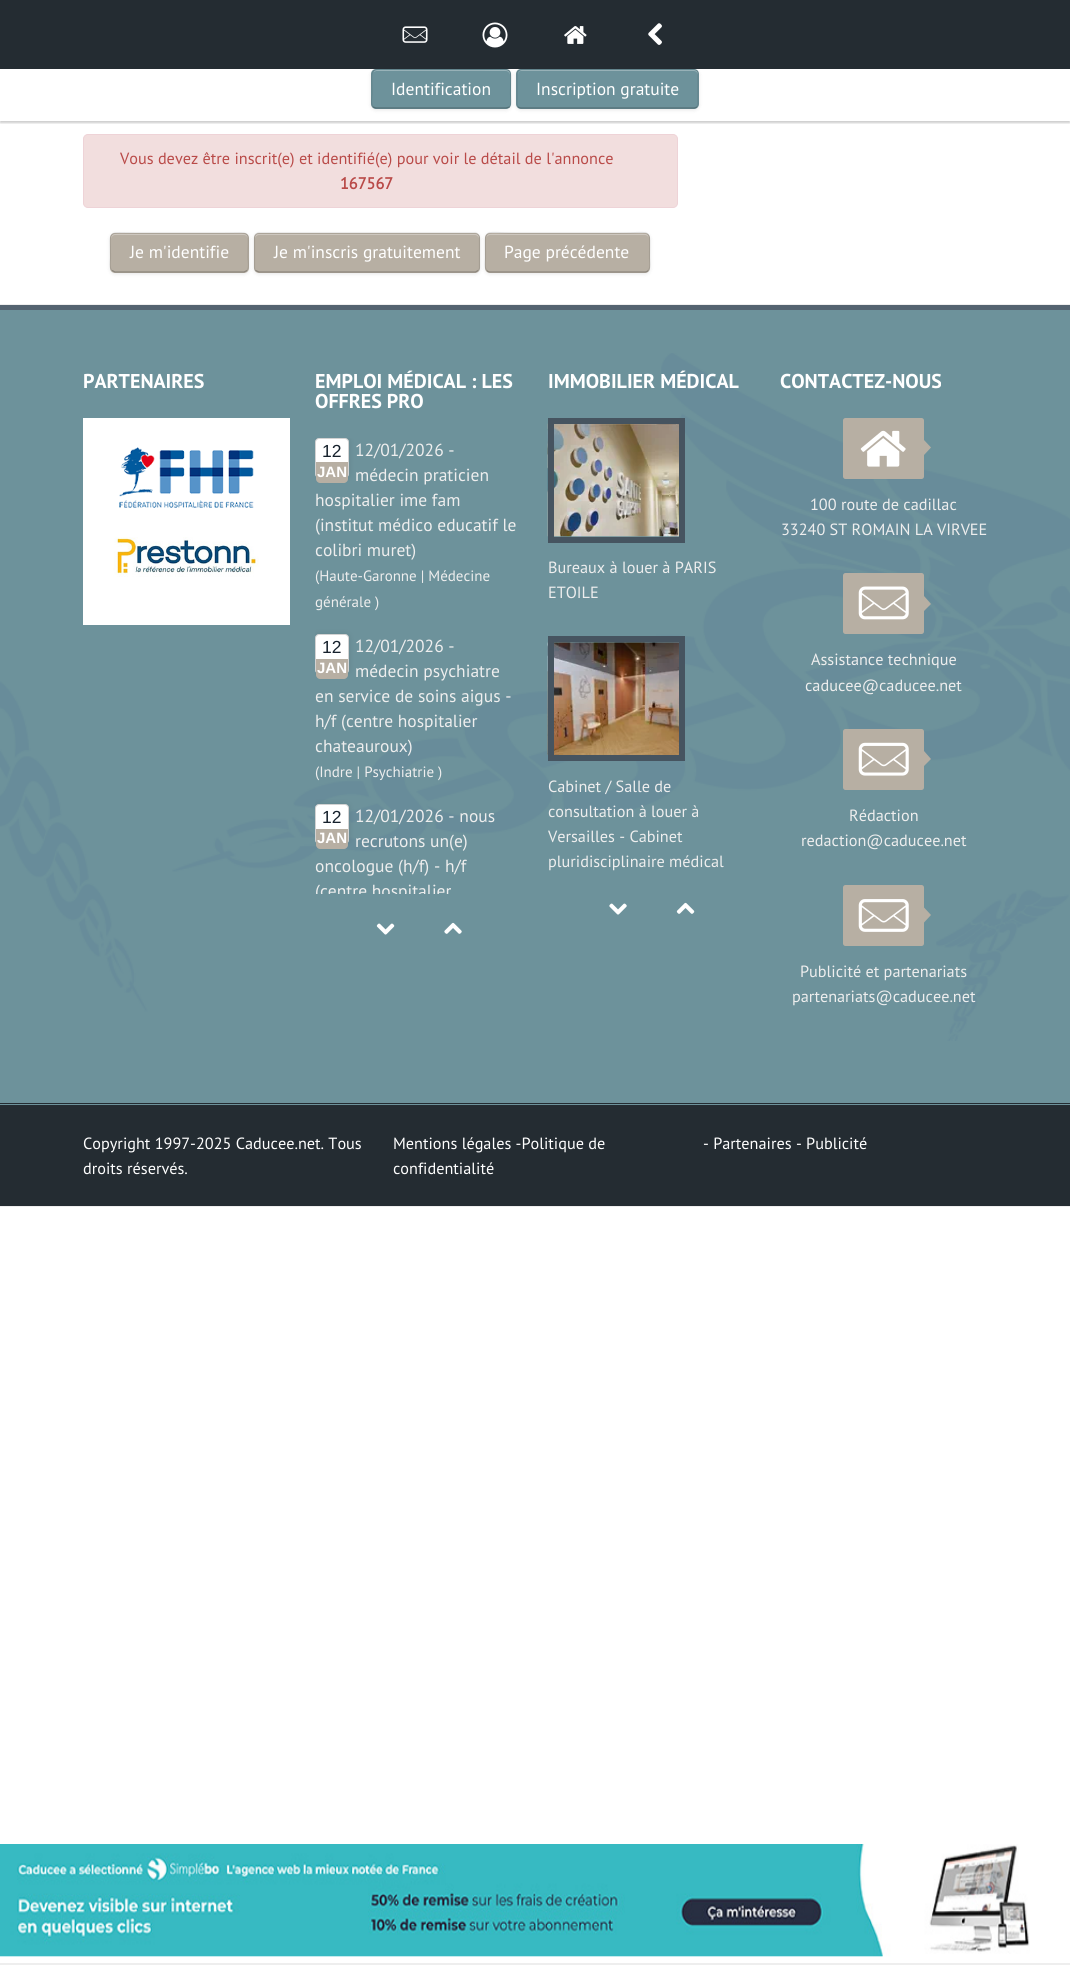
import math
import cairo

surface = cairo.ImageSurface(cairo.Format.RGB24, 1070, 1965)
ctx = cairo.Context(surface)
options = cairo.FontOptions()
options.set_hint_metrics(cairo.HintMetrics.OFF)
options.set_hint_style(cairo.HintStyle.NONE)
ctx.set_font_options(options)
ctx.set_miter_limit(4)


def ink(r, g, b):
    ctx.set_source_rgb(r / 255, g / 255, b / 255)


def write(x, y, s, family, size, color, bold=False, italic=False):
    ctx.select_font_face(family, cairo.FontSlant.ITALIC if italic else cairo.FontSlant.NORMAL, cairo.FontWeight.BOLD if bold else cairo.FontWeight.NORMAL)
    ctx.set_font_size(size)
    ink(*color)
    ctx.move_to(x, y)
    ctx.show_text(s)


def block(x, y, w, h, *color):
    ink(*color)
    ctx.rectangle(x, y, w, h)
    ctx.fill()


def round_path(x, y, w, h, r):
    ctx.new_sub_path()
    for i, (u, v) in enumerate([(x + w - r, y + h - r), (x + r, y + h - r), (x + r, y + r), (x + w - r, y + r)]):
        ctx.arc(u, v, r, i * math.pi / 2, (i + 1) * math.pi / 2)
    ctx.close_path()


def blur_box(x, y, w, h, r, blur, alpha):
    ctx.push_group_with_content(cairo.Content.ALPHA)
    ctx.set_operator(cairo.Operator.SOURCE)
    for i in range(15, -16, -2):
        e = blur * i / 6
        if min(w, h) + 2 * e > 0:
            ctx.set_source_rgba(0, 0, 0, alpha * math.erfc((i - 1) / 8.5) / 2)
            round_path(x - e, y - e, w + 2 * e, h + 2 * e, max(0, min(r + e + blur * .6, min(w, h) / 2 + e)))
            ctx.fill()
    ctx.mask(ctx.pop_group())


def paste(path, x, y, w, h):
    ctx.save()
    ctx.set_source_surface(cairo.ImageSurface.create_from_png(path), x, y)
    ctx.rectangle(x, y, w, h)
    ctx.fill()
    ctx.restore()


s1 = dict(family="PT Sans", size=17.5, color=(255, 255, 255))
s2 = dict(family="PT Sans", size=16.25, color=(185, 74, 72))
s3 = dict(family="PT Sans", size=16.25, color=(185, 74, 72), bold=True)
s4 = dict(family="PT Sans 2", size=20, color=(255, 255, 255), bold=True)
s5 = dict(family="PT Sans", size=17.5, color=(238, 238, 238))
s6 = dict(family="PT Sans", size=15, color=(238, 238, 238))
s7 = dict(family="Liberation Sans", size=17.5, color=(22, 33, 44))
s8 = dict(family="Liberation Sans", size=15, color=(255, 255, 255), bold=True)
s9 = dict(family="PT Sans", size=16.25, color=(238, 238, 238))
s10 = dict(family="PT Sans", size=16.25, color=(255, 255, 255))

ink(255, 255, 255)
ctx.paint()
ctx.save()
ctx.rectangle(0, 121, 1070, 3)
ctx.clip()
ink(0, 0, 0)
blur_box(0, 58, 1070, 65, 0, 1, 0.2)
ctx.restore()
ink(0, 0, 0)
blur_box(371, 70, 140, 40, 5, 2, 0.1)
ink(109, 146, 155)
round_path(371, 69, 140, 40, 5)
ctx.fill()
ink(153, 179, 185)
ctx.new_path()
ctx.move_to(376, 71)
ctx.line_to(506, 71)
ctx.curve_to(508, 71, 510, 73, 510, 75)
ctx.line_to(510, 74)
ctx.curve_to(510, 72, 508, 70, 506, 70)
ctx.line_to(377, 70)
ctx.curve_to(376, 70, 374, 71, 374, 72)
ctx.close_path()
ctx.fill()
ctx.new_path()
ctx.move_to(509.5, 107)
ctx.line_to(506, 108)
ctx.line_to(376, 108)
ctx.line_to(373, 107)
ink(82, 110, 116)
ctx.set_line_width(1.2)
ctx.stroke()
ctx.new_path()
ctx.move_to(373, 107)
ctx.curve_to(370.5, 104, 372, 96.5, 372, 94)
ctx.curve_to(372, 64.5, 367, 69.5, 398, 69.5)
ctx.line_to(484.5, 69.5)
ctx.curve_to(515.5, 69.5, 510.5, 64.5, 510.5, 94)
ctx.curve_to(510.5, 96.5, 512, 104, 509.5, 107)
ctx.set_source_rgba(0, 0, 0, 0.1)
ctx.stroke()
ink(0, 0, 0)
blur_box(516, 70, 183, 40, 5, 2, 0.1)
ink(109, 146, 155)
round_path(516, 69, 183, 40, 5)
ctx.fill()
ink(153, 179, 185)
ctx.new_path()
ctx.move_to(521, 71)
ctx.line_to(694, 71)
ctx.curve_to(696, 71, 698, 73, 698, 75)
ctx.line_to(698, 74)
ctx.curve_to(698, 72, 696, 70, 694, 70)
ctx.line_to(522, 70)
ctx.curve_to(520, 70, 518, 72, 518, 74)
ctx.line_to(518, 75)
ctx.curve_to(518, 73, 519, 71, 521, 71)
ctx.close_path()
ctx.fill()
ctx.new_path()
ctx.move_to(697, 107)
ctx.curve_to(696, 107.5, 695, 108, 694, 108)
ctx.line_to(521, 108)
ctx.curve_to(520, 108, 519, 107.5, 518, 107)
ctx.set_source_rgba(0, 0, 0, 0.25)
ctx.stroke()
ctx.new_path()
ctx.move_to(518, 107)
ctx.curve_to(517.5, 106, 517, 105, 517, 104)
ctx.line_to(517, 74)
ctx.curve_to(517, 72.5, 517.5, 71.5, 518, 70.5)
ctx.curve_to(519, 70, 520, 69.5, 521, 69.5)
ctx.line_to(694, 69.5)
ctx.curve_to(695, 69.5, 696, 70, 697, 70.5)
ctx.curve_to(697.5, 71.5, 698, 72.5, 698, 74)
ctx.line_to(698, 104)
ctx.curve_to(698, 105, 697.5, 106, 697, 107)
ctx.set_source_rgba(0, 0, 0, 0.1)
ctx.stroke()
block(0, 0, 1070, 69, 36, 44, 50)
paste("pic1.png", 402, 26, 26, 17)
paste("pic2.png", 482, 22, 26, 26)
paste("pic3.png", 564, 26, 23, 18)
paste("pic4.png", 648, 23, 14, 22)
write(391, 95, "Identification", **s1)
write(536, 95, "Inscription gratuite", **s1)
block(0, 304, 1070, 1, 238, 238, 238)
ink(242, 222, 222)
round_path(83.5, 134.5, 594, 73, 4.5)
ctx.fill_preserve()
ink(238, 211, 215)
ctx.set_line_width(1)
ctx.stroke()
write(120, 164, "Vous devez être inscrit(e) et identifié(e) pour voir le détail de l'annonce", **s2)
write(340, 189, "167567", **s3)
ink(0, 0, 0)
blur_box(110, 234, 139, 40, 5, 2, 0.1)
ink(183, 175, 163)
round_path(110, 233, 139, 40, 5)
ctx.fill()
ink(205, 199, 191)
ctx.new_path()
ctx.move_to(115, 235)
ctx.line_to(244, 235)
ctx.curve_to(246, 235, 248, 237, 248, 239)
ctx.line_to(248, 238)
ctx.curve_to(248, 236, 246, 234, 244, 234)
ctx.line_to(115, 234)
ctx.curve_to(113, 234, 111, 236, 111, 238)
ctx.line_to(111, 239)
ctx.curve_to(111, 237, 113, 235, 115, 235)
ctx.close_path()
ctx.fill()
ctx.new_path()
ctx.move_to(247, 270.5)
ctx.line_to(244, 272)
ctx.line_to(136.5, 272)
ctx.line_to(115, 272)
ctx.line_to(112, 270.5)
ink(137, 131, 122)
ctx.set_line_width(1.2)
ctx.stroke()
ctx.new_path()
ctx.move_to(112, 270.5)
ctx.curve_to(109, 268, 110.5, 260.5, 110.5, 257.5)
ctx.curve_to(110.5, 228.5, 105.5, 233, 136.5, 233)
ctx.line_to(222.5, 233)
ctx.curve_to(253, 233, 248, 228.5, 248, 257.5)
ctx.curve_to(248, 260.5, 249.5, 268, 247, 270.5)
ctx.set_source_rgba(0, 0, 0, 0.1)
ctx.stroke()
write(130, 258, "Je m'identifie", **s1)
ink(0, 0, 0)
blur_box(254, 234, 226, 40, 5, 2, 0.1)
ink(183, 175, 163)
round_path(254, 233, 226, 40, 5)
ctx.fill()
ink(205, 199, 191)
ctx.new_path()
ctx.move_to(259, 235)
ctx.line_to(475, 235)
ctx.curve_to(477, 235, 479, 237, 479, 239)
ctx.curve_to(479, 236, 478, 234, 475, 234)
ctx.line_to(259, 234)
ctx.curve_to(256, 234, 255, 236, 255, 239)
ctx.curve_to(255, 237, 257, 235, 259, 235)
ctx.close_path()
ctx.fill()
ctx.new_path()
ctx.move_to(478, 270.5)
ctx.line_to(475.5, 272)
ctx.line_to(295, 272)
ctx.line_to(259, 272)
ctx.line_to(255.5, 270.5)
ctx.set_source_rgba(0, 0, 0, 0.25)
ctx.stroke()
ctx.new_path()
ctx.move_to(255.5, 270.5)
ctx.curve_to(255, 270, 254.5, 268.5, 254.5, 267.5)
ctx.line_to(254.5, 237.5)
ctx.curve_to(254.5, 236.5, 255, 235, 255.5, 234.5)
ctx.curve_to(256.5, 233.5, 257.5, 233, 259, 233)
ctx.line_to(475, 233)
ctx.curve_to(476, 233, 477.5, 233.5, 478, 234.5)
ctx.curve_to(479, 235, 479.5, 236.5, 479.5, 237.5)
ctx.line_to(479.5, 267.5)
ctx.curve_to(479.5, 268.5, 479, 270, 478, 270.5)
ctx.set_source_rgba(0, 0, 0, 0.1)
ctx.stroke()
write(274, 258, "Je m'inscris gratuitement", **s1)
ink(0, 0, 0)
blur_box(485, 234, 165, 40, 5, 2, 0.1)
ink(183, 175, 163)
round_path(485, 233, 165, 40, 5)
ctx.fill()
ink(205, 199, 191)
ctx.new_path()
ctx.move_to(490, 235)
ctx.line_to(645, 235)
ctx.curve_to(647, 235, 649, 237, 649, 239)
ctx.curve_to(649, 237, 648, 235, 646, 234)
ctx.line_to(489, 234)
ctx.curve_to(487, 235, 486, 237, 486, 239)
ctx.curve_to(486, 237, 488, 235, 490, 235)
ctx.close_path()
ctx.fill()
ctx.new_path()
ctx.move_to(648, 270.5)
ctx.curve_to(647.5, 271.5, 646, 272, 645, 272)
ctx.line_to(490, 272)
ctx.curve_to(489, 272, 487.5, 271.5, 487, 270.5)
ctx.set_source_rgba(0, 0, 0, 0.25)
ctx.stroke()
ctx.new_path()
ctx.move_to(487, 270.5)
ctx.curve_to(484, 268, 485.5, 260.5, 485.5, 257.5)
ctx.curve_to(485.5, 226.5, 481, 233, 516, 233)
ctx.line_to(619, 233)
ctx.curve_to(654, 233, 649.5, 226.5, 649.5, 257.5)
ctx.curve_to(649.5, 260.5, 651, 268, 648, 270.5)
ctx.set_source_rgba(0, 0, 0, 0.1)
ctx.stroke()
write(504, 258, "Page précédente", **s1)
block(0, 1963, 1070, 2, 238, 238, 238)
paste("pic5.png", 0, 1844, 1030, 113)
block(0, 1206, 1070, 1, 238, 238, 238)
block(0, 310, 1070, 793, 109, 146, 155)
paste("pic6.png", 0, 353, 1070, 688)
block(0, 305, 1070, 5, 84, 99, 112)
block(0, 1103, 1070, 1, 36, 44, 50)
write(83, 388, "PARTENAIRES", **s4)
block(83, 418, 207, 207, 255, 255, 255)
paste("pic7.png", 119, 447, 135, 61)
paste("pic8.png", 113, 537, 146, 40)
write(315, 388, "EMPLOI MÉDICAL : LES", **s4)
write(315, 408, "OFFRES PRO", **s4)
ctx.save()
ctx.rectangle(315, 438, 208, 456)
ctx.clip()
ink(0, 0, 0)
blur_box(315, 438, 34, 40, 4, 3, 0.1)
ctx.restore()
write(355, 456, "12/01/2026 -", **s5)
write(355, 481, "médecin praticien", **s5)
write(315, 506, "hospitalier ime fam", **s5)
write(315, 531, "(institut médico educatif le", **s5)
write(315, 556, "colibri muret)", **s5)
write(315, 581, "(Haute-Garonne | Médecine", **s6)
write(315, 607, "générale )", **s6)
ink(255, 255, 255)
round_path(315.5, 438.5, 33, 39, 3.5)
ctx.fill_preserve()
ink(210, 210, 210)
ctx.set_line_width(1)
ctx.stroke()
write(322, 457, "12", **s7)
ink(183, 175, 163)
ctx.new_path()
ctx.move_to(316, 461)
ctx.line_to(348, 461)
ctx.line_to(348, 479)
ctx.curve_to(348, 481, 346, 483, 344, 483)
ctx.line_to(320, 483)
ctx.curve_to(318, 483, 316, 481, 316, 479)
ctx.close_path()
ctx.fill()
block(316, 461, 32, 1, 255, 255, 255)
write(317, 477, "JAN", **s8)
ctx.save()
ctx.rectangle(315, 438, 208, 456)
ctx.clip()
ink(0, 0, 0)
blur_box(315, 634, 34, 40, 4, 3, 0.1)
ctx.restore()
write(355, 652, "12/01/2026 -", **s5)
write(355, 677, "médecin psychiatre", **s5)
write(315, 702, "en service de soins aigus -", **s5)
write(315, 727, "h/f (centre hospitalier", **s5)
write(315, 752, "chateauroux)", **s5)
write(315, 777, "(Indre | Psychiatrie )", **s6)
ink(255, 255, 255)
round_path(315.5, 634.5, 33, 39, 3.5)
ctx.fill_preserve()
ink(210, 210, 210)
ctx.stroke()
write(322, 653, "12", **s7)
ink(183, 175, 163)
ctx.new_path()
ctx.move_to(316, 658)
ctx.line_to(348, 658)
ctx.line_to(348, 675)
ctx.curve_to(348, 677, 346, 679, 344, 679)
ctx.line_to(320, 679)
ctx.curve_to(318, 679, 316, 677, 316, 675)
ctx.close_path()
ctx.fill()
block(316, 658, 32, 1, 255, 255, 255)
write(317, 673, "JAN", **s8)
ctx.save()
ctx.rectangle(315, 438, 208, 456)
ctx.clip()
ink(0, 0, 0)
blur_box(315, 804, 34, 40, 4, 3, 0.1)
ctx.restore()
write(355, 822, "12/01/2026 - nous", **s5)
write(355, 847, "recrutons un(e)", **s5)
write(315, 872, "oncologue (h/f) - h/f", **s5)
ctx.save()
ctx.rectangle(315, 438, 208, 456)
ctx.clip()
write(315, 897, "(centre hospitalier", **s5)
ctx.restore()
ink(255, 255, 255)
round_path(315.5, 804.5, 33, 39, 3.5)
ctx.fill_preserve()
ink(210, 210, 210)
ctx.stroke()
write(322, 823, "12", **s7)
ink(183, 175, 163)
ctx.new_path()
ctx.move_to(316, 828)
ctx.line_to(348, 828)
ctx.line_to(348, 845)
ctx.curve_to(348, 847, 346, 849, 344, 849)
ctx.line_to(320, 849)
ctx.curve_to(318, 849, 316, 847, 316, 845)
ctx.close_path()
ctx.fill()
block(316, 828, 32, 1, 255, 255, 255)
write(317, 843, "JAN", **s8)
paste("pic9.png", 376, 923, 19, 12)
paste("pic10.png", 444, 922, 18, 12)
write(548, 388, "IMMOBILIER MÉDICAL", **s4)
paste("pic11.png", 547, 423, 132, 114)
ctx.rectangle(551, 421, 131, 119)
ink(70, 84, 96)
ctx.set_line_width(6)
ctx.stroke()
write(548, 573, "Bureaux à louer à PARIS", **s9)
write(548, 598, "ETOILE", **s9)
paste("pic12.png", 547, 642, 132, 113)
ctx.rectangle(551, 639, 131, 119)
ink(70, 84, 96)
ctx.stroke()
write(548, 792, "Cabinet / Salle de", **s9)
write(548, 817, "consultation à louer à", **s9)
write(548, 842, "Versailles - Cabinet", **s9)
write(548, 867, "pluridisciplinaire médical", **s9)
paste("pic13.png", 609, 903, 18, 12)
paste("pic14.png", 676, 902, 19, 12)
write(780, 388, "CONTACTEZ-NOUS", **s4)
ink(183, 175, 163)
round_path(843, 418, 81, 61, 2.5)
ctx.fill()
paste("pic15.png", 860, 430, 46, 37)
ctx.new_path()
ctx.move_to(924, 455)
ctx.line_to(924, 440)
ctx.line_to(931, 447.5)
ctx.close_path()
ctx.fill()
write(810, 510, "100 route de cadillac", **s9)
write(781, 535, "33240 ST ROMAIN LA VIRVEE", **s9)
ink(183, 175, 163)
round_path(843, 573, 81, 61, 2.5)
ctx.fill()
paste("pic16.png", 858, 586, 51, 34)
ctx.new_path()
ctx.move_to(924, 611)
ctx.line_to(924, 596)
ctx.line_to(931, 604)
ctx.close_path()
ctx.fill()
write(811, 665, "Assistance technique", **s9)
write(805, 691, "caducee@caducee.net", **s9)
ink(183, 175, 163)
round_path(843, 729, 81, 61, 2.5)
ctx.fill()
paste("pic17.png", 858, 742, 51, 34)
ctx.new_path()
ctx.move_to(924, 766)
ctx.line_to(924, 751)
ctx.line_to(931, 759)
ctx.close_path()
ctx.fill()
write(849, 821, "Rédaction", **s9)
write(801, 846, "redaction@caducee.net", **s9)
ink(183, 175, 163)
round_path(843, 885, 81, 61, 2.5)
ctx.fill()
paste("pic18.png", 858, 899, 51, 33)
ctx.new_path()
ctx.move_to(924, 922.5)
ctx.line_to(924, 907.5)
ctx.line_to(931, 915)
ctx.close_path()
ctx.fill()
write(800, 977, "Publicité et partenariats", **s9)
write(792, 1002, "partenariats@caducee.net", **s9)
block(0, 1105, 1070, 101, 36, 44, 50)
block(0, 1104, 1070, 1, 109, 146, 155)
write(83, 1149, "Copyright 1997-2025 Caducee.net. Tous", **s10)
write(83, 1174, "droits réservés.", **s10)
write(393, 1149, "Mentions légales -Politique de", **s10)
write(393, 1174, "confidentialité", **s10)
write(703, 1149, "- Partenaires - Publicité", **s10)
surface.write_to_png("screenshot.png")
